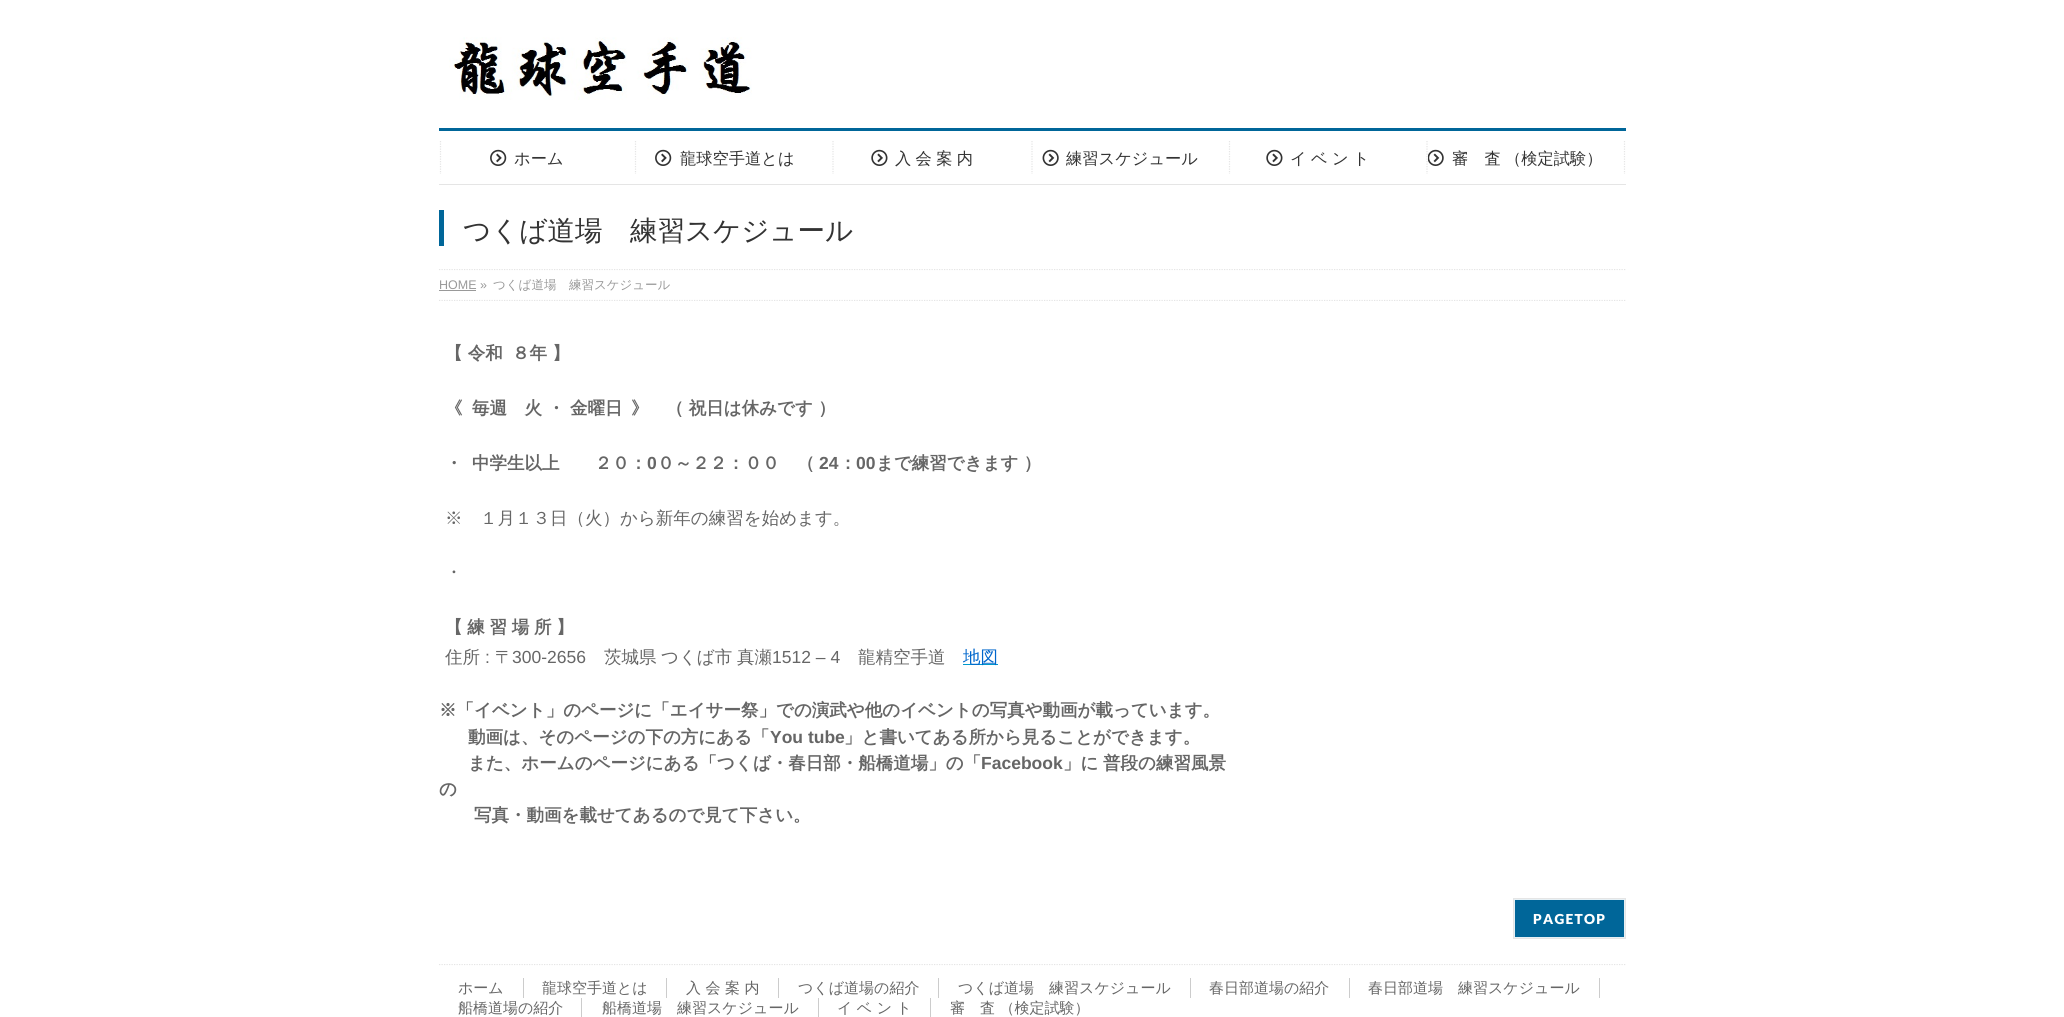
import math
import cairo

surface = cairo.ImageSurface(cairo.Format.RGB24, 2064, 1017)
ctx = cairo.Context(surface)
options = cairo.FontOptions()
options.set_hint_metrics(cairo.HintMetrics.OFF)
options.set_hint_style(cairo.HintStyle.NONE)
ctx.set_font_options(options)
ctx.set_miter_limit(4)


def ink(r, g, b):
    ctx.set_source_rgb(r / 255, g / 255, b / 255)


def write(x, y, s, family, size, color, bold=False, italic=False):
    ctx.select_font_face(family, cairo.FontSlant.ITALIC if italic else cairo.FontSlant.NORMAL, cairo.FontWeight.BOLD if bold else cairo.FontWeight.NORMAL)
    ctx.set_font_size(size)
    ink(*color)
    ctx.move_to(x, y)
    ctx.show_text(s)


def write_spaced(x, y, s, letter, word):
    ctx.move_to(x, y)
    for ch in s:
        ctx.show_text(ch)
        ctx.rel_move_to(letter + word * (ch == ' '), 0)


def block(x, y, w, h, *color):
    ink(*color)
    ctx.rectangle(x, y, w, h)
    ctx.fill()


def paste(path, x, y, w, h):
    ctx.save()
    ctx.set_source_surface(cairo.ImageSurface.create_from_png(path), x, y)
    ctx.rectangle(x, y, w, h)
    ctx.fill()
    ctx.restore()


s1 = dict(family="WenQuanYi Zen Hei Medium", size=16.25, color=(51, 51, 51))
s2 = dict(family="WenQuanYi Zen Hei Medium", size=27.5, color=(51, 51, 51))
s3 = dict(family="Liberation Sans", size=12.5, color=(153, 153, 153))
s4 = dict(family="WenQuanYi Zen Hei Medium", size=12.5, color=(153, 153, 153))
s5 = dict(family="WenQuanYi Zen Hei", size=17.5, color=(102, 102, 102), bold=True)
s6 = dict(family="Liberation Sans", size=17.5, color=(102, 102, 102), bold=True)
s7 = dict(family="WenQuanYi Zen Hei Medium", size=17.5, color=(102, 102, 102))
s8 = dict(family="Liberation Sans", size=17.5, color=(102, 102, 102))
s9 = dict(family="WenQuanYi Zen Hei Medium", size=17.5, color=(0, 102, 204))
s10 = dict(family="WenQuanYi Zen Hei Medium", size=15, color=(102, 102, 102))

ink(255, 255, 255)
ctx.paint()
paste("pic1.png", 449, 37, 303, 63)
block(439, 128, 1187, 3, 0, 102, 153)
block(439, 184, 1187, 1, 229, 229, 229)
ctx.new_path()
ctx.move_to(440.5, 141)
ctx.line_to(440.5, 174)
ctx.set_line_width(1.2)
ctx.set_dash([1.25, 1.25])
ctx.stroke()
paste("pic2.png", 490, 149, 17, 17)
write(514, 164, "ホーム", **s1)
ctx.new_path()
ctx.move_to(635.5, 141)
ctx.line_to(635.5, 174)
ink(229, 229, 229)
ctx.stroke()
paste("pic2.png", 655, 149, 17, 17)
write(680, 164, "龍球空手道とは", **s1)
ctx.new_path()
ctx.move_to(833, 141)
ctx.line_to(833, 174)
ink(229, 229, 229)
ctx.stroke()
paste("pic3.png", 871, 149, 17, 17)
ink(51, 51, 51)
write_spaced(895, 164, "入 会 案 内", 0, -0.5)
ctx.new_path()
ctx.move_to(1032, 141)
ctx.line_to(1032, 174)
ink(229, 229, 229)
ctx.stroke()
paste("pic4.png", 1042, 149, 17, 17)
write(1066, 164, "練習スケジュール", **s1)
ctx.new_path()
ctx.move_to(1229.5, 141)
ctx.line_to(1229.5, 174)
ink(229, 229, 229)
ctx.stroke()
paste("pic3.png", 1266, 149, 17, 17)
ink(51, 51, 51)
write_spaced(1290, 164, "イ ベ ン ト", 0, -0.5)
ctx.new_path()
ctx.move_to(1427, 141)
ctx.line_to(1427, 174)
ink(229, 229, 229)
ctx.stroke()
paste("pic5.png", 1428, 149, 16, 17)
ink(51, 51, 51)
write_spaced(1452, 164, "審　査 （検定試験）", 0, -0.5)
ctx.new_path()
ctx.move_to(1624.5, 141)
ctx.line_to(1624.5, 174)
ink(229, 229, 229)
ctx.stroke()
block(439, 210, 5, 36, 0, 102, 153)
write(463, 240, "つくば道場　練習スケジュール", **s2)
ctx.save()
ctx.rectangle(408, 269, 1250, 32)
ctx.clip()
ctx.new_path()
ctx.move_to(439, 269.5)
ctx.line_to(1626, 269.5)
ink(229, 229, 229)
ctx.stroke()
ctx.new_path()
ctx.move_to(439, 300.5)
ctx.line_to(1626, 300.5)
ctx.stroke()
ctx.restore()
write(439, 289, "HOME »", **s3)
block(439, 290, 37, 1, 153, 153, 153)
write(493, 289, "つくば道場　練習スケジュール", **s4)
write(445, 359, "【 令和", **s5)
write(512, 359, "８年 】", **s5)
write(445, 414, "《", **s5)
write(472, 414, "毎週　火 ・ 金曜日", **s5)
write(631, 414, "》　（ 祝日は休みです ）", **s5)
write(445, 469, "・", **s5)
write(472, 469, "中学生以上　　２０：", **s5)
write(647, 469, "0", **s6)
write(657, 469, "０～２２：００　（", **s5)
write(819, 469, "24", **s6)
write(839, 469, "：", **s5)
write(856, 469, "00", **s6)
write(876, 469, "まで練習できます ）", **s5)
write(445, 524, "※　１月１３日（火）から新年の練習を始めます。", **s7)
write(445, 578, "・", **s7)
ctx.select_font_face("WenQuanYi Zen Hei", cairo.FontSlant.NORMAL, cairo.FontWeight.BOLD)
write_spaced(445, 633, "【 練 習 場 所 】", 0, -0.5)
write(445, 663, "住所", **s7)
write(485, 663, ":", **s8)
write(495, 663, "〒", **s7)
write(512, 663, "300-2656", **s8)
write(604, 663, "茨城県", **s7)
write(661, 663, "つくば市", **s7)
write(737, 663, "真瀬", **s7)
write(772, 663, "1512 – 4", **s8)
write(858, 663, "龍精空手道", **s7)
block(963, 664, 35, 1, 0, 153, 204)
write(963, 663, "地図", **s9)
write(439, 716, "※「イベント」のページに「エイサー祭」での演武や他のイベントの写真や動画が載っています。", **s5)
write(468, 743, "動画は、そのページの下の方にある「", **s5)
write(770, 743, "You tube", **s6)
write(844, 743, "」と書いてある所から見ることができます。", **s5)
write(468, 769, "また、ホームのページにある「つくば・春日部・船橋道場」の「", **s5)
write(981, 769, "Facebook", **s6)
write(1063, 769, "」に", **s5)
write(1103, 769, "普段の練習風景", **s5)
write(439, 795, "の", **s5)
write(474, 821, "写真・動画を載せてあるので見て下さい。", **s5)
ink(0, 102, 153)
ctx.rectangle(1514.5, 899.5, 110, 38)
ctx.fill_preserve()
ink(230, 240, 245)
ctx.set_line_width(1)
ctx.set_dash([])
ctx.stroke()
ctx.rectangle(1513.5, 898.5, 112, 40)
ink(229, 229, 229)
ctx.stroke()
ctx.select_font_face("Lato Black")
ctx.set_font_size(13.75)
ink(255, 255, 255)
write_spaced(1533, 924, "PAGETOP", 1.25, 0)
ctx.save()
ctx.rectangle(0, 964, 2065, 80)
ctx.clip()
ctx.new_path()
ctx.move_to(439, 964.5)
ctx.line_to(1626, 964.5)
ink(229, 229, 229)
ctx.set_line_width(1.2)
ctx.set_dash([1.25, 1.25])
ctx.stroke()
ctx.restore()
block(523, 978, 1, 20, 204, 204, 204)
write(458, 993, "ホーム", **s10)
block(666, 978, 1, 20, 204, 204, 204)
write(542, 993, "龍球空手道とは", **s10)
block(778, 978, 1, 20, 204, 204, 204)
write(686, 993, "入 会 案 内", **s10)
block(938, 978, 1, 20, 204, 204, 204)
write(798, 993, "つくば道場の紹介", **s10)
block(1190, 978, 1, 20, 204, 204, 204)
write(958, 993, "つくば道場　練習スケジュール", **s10)
block(1349, 978, 1, 20, 204, 204, 204)
write(1209, 993, "春日部道場の紹介", **s10)
block(1599, 978, 1, 20, 204, 204, 204)
write(1368, 993, "春日部道場　練習スケジュール", **s10)
block(581, 998, 1, 19, 204, 204, 204)
write(458, 1013, "船橋道場の紹介", **s10)
block(818, 998, 1, 19, 204, 204, 204)
write(602, 1013, "船橋道場　練習スケジュール", **s10)
block(930, 998, 1, 19, 204, 204, 204)
write(837, 1013, "イ ベ ン ト", **s10)
write(950, 1013, "審　査 （検定試験）", **s10)
surface.write_to_png("screenshot.png")
